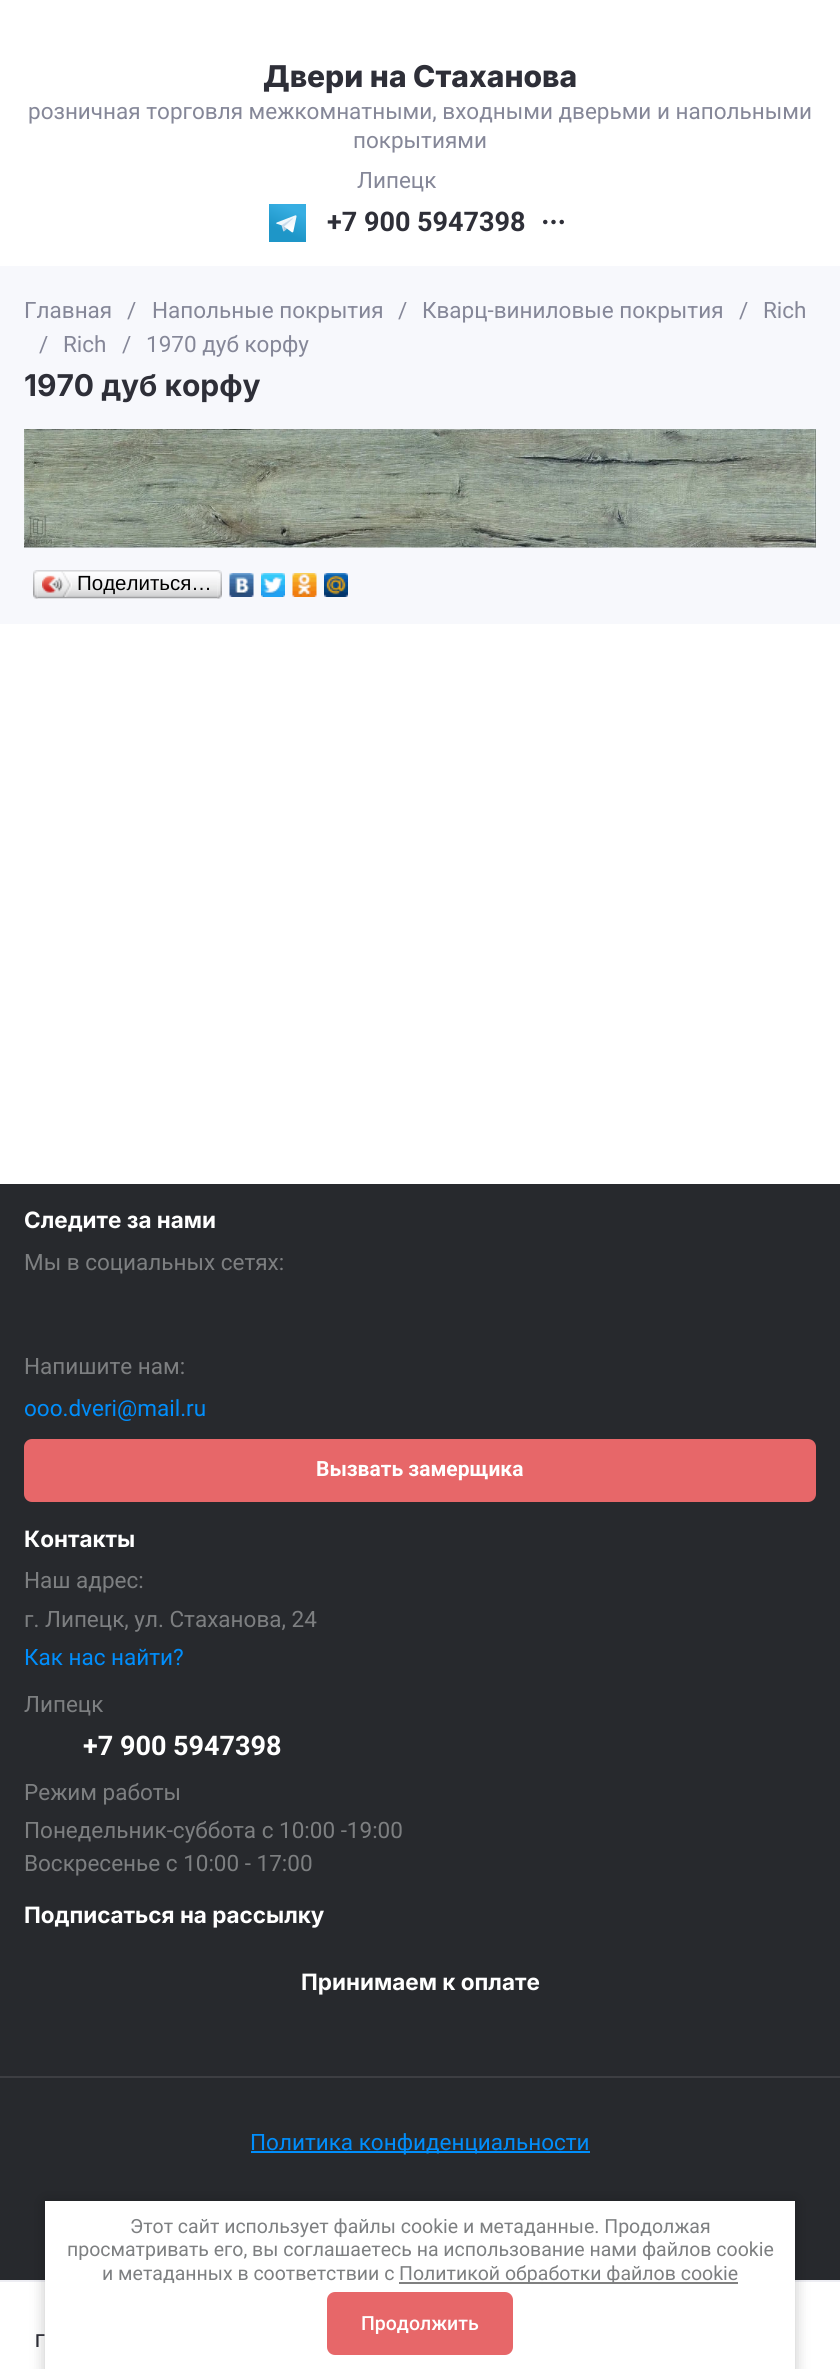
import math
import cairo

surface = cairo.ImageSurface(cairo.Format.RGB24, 840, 2369)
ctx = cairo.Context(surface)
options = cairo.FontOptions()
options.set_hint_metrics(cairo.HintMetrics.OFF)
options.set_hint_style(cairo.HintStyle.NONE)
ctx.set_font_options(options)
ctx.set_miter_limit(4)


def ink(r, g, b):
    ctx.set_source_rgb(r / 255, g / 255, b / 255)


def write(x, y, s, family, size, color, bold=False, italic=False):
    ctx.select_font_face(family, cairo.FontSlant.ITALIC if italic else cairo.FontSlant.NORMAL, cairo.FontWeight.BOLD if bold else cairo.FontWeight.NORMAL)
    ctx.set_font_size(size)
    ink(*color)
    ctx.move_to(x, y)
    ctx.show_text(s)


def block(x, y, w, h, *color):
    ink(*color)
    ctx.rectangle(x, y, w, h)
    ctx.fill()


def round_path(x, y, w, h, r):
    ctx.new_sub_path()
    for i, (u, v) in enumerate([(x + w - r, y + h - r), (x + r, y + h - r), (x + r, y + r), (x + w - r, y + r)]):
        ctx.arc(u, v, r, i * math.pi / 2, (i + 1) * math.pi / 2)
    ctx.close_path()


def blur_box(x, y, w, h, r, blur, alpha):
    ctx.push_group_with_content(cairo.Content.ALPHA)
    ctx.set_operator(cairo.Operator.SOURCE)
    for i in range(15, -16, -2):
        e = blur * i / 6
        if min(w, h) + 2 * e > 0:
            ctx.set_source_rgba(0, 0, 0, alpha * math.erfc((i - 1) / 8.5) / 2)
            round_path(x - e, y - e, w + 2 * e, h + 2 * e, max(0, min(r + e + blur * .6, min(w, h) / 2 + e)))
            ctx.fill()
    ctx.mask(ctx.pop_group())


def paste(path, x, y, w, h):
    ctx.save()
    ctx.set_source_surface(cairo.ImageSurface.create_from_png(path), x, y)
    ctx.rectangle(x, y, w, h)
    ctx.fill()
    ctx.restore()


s1 = dict(family="Inter ExtraBold", size=30, color=(46, 47, 56))
s2 = dict(family="Roboto", size=22.5, color=(133, 135, 152))
s3 = dict(family="Roboto", size=27, color=(46, 47, 56), bold=True)
s4 = dict(family="Inter", size=30, color=(46, 47, 56), bold=True)
s5 = dict(family="Liberation Sans", size=20.5, color=(0, 0, 0))
s6 = dict(family="Inter", size=22.5, color=(255, 255, 255), bold=True)
s7 = dict(family="Roboto", size=22.5, color=(125, 127, 129))
s8 = dict(family="Roboto", size=22.5, color=(0, 142, 252))
s9 = dict(family="Roboto", size=21, color=(255, 255, 255), bold=True)
s10 = dict(family="Roboto", size=27, color=(255, 255, 255), bold=True)
s11 = dict(family="Roboto Medium", size=18, color=(46, 47, 56))
s12 = dict(family="Roboto", size=19.5, color=(125, 127, 129))
s13 = dict(family="Roboto Medium", size=19.5, color=(255, 255, 255))

ink(255, 255, 255)
ctx.paint()
write(263, 87, "Двери на Стаханова", **s1)
write(28, 119, "розничная торговля межкомнатными, входными дверьми и напольными", **s2)
write(353, 148, "покрытиями", **s2)
write(357, 188, "Липецк", **s2)
paste("pic1.png", 269, 204, 37, 38)
write(327, 231, "+7 900 5947398", **s3)
paste("pic2.png", 543, 219, 21, 6)
block(0, 266, 840, 358, 247, 248, 252)
write(24, 318, "Главная", **s2)
write(127, 318, "/", **s2)
write(152, 318, "Напольные покрытия", **s2)
write(398, 318, "/", **s2)
write(422, 318, "Кварц-виниловые покрытия", **s2)
write(739, 318, "/", **s2)
write(763, 318, "Rich", **s2)
write(39, 352, "/", **s2)
write(63, 352, "Rich", **s2)
write(122, 352, "/", **s2)
write(146, 352, "1970 дуб корфу", **s2)
write(24, 396, "1970 дуб корфу", **s4)
paste("pic3.png", 24, 429, 792, 119)
paste("pic4.png", 37, 570, 181, 29)
paste("pic5.png", 33, 570, 5, 29)
paste("pic6.png", 42, 571, 30, 26)
write(77, 590, "Поделиться…", **s5)
paste("pic7.png", 217, 570, 5, 29)
paste("pic8.png", 229, 573, 25, 24)
paste("pic9.png", 261, 573, 24, 24)
paste("pic10.png", 292, 573, 25, 24)
paste("pic11.png", 324, 573, 24, 24)
block(0, 1184, 840, 1096, 39, 41, 45)
block(0, 2076, 840, 2, 61, 62, 66)
write(24, 1228, "Следите за нами", **s6)
write(24, 1270, "Мы в социальных сетях:", **s7)
write(24, 1374, "Напишите нам:", **s7)
write(24, 1416, "ooo.dveri@mail.ru", **s8)
ink(231, 103, 105)
round_path(24, 1439, 792, 63, 8)
ctx.fill()
write(316, 1476, "Вызвать замерщика", **s9)
write(24, 1547, "Контакты", **s6)
write(24, 1588, "Наш адрес:", **s7)
write(24, 1627, "г. Липецк, ул. Стаханова, 24", **s7)
write(24, 1665, "Как нас найти?", **s8)
write(24, 1712, "Липецк", **s7)
write(83, 1755, "+7 900 5947398", **s10)
write(24, 1800, "Режим работы", **s7)
write(24, 1838, "Понедельник-суббота с 10:00 -19:00", **s7)
write(24, 1871, "Воскресенье с 10:00 - 17:00", **s7)
write(24, 1923, "Подписаться на рассылку", **s6)
write(301, 1990, "Принимаем к оплате", **s6)
block(251, 2151, 339, 2, 0, 142, 252)
write(250, 2150, "Политика конфиденциальности", **s8)
block(0, 2280, 840, 2, 237, 237, 243)
write(35, 2347, "Г", **s11)
ink(0, 0, 0)
blur_box(45, 2202, 750, 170, 0, 7.5, 0.23)
block(45, 2201, 750, 168, 255, 255, 255)
write(130, 2233, "Этот сайт использует файлы cookie и метаданные. Продолжая", **s12)
write(67, 2256, "просматривать его, вы соглашаетесь на использование нами файлов cookie", **s12)
write(102, 2280, "и метаданных в соответствии с", **s12)
block(399, 2282, 339, 2, 128, 128, 128)
write(399, 2280, "Политикой обработки файлов cookie", **s12)
ink(231, 103, 105)
round_path(327, 2292, 186, 63, 8)
ctx.fill()
write(361, 2330, "Продолжить", **s13)
surface.write_to_png("screenshot.png")
